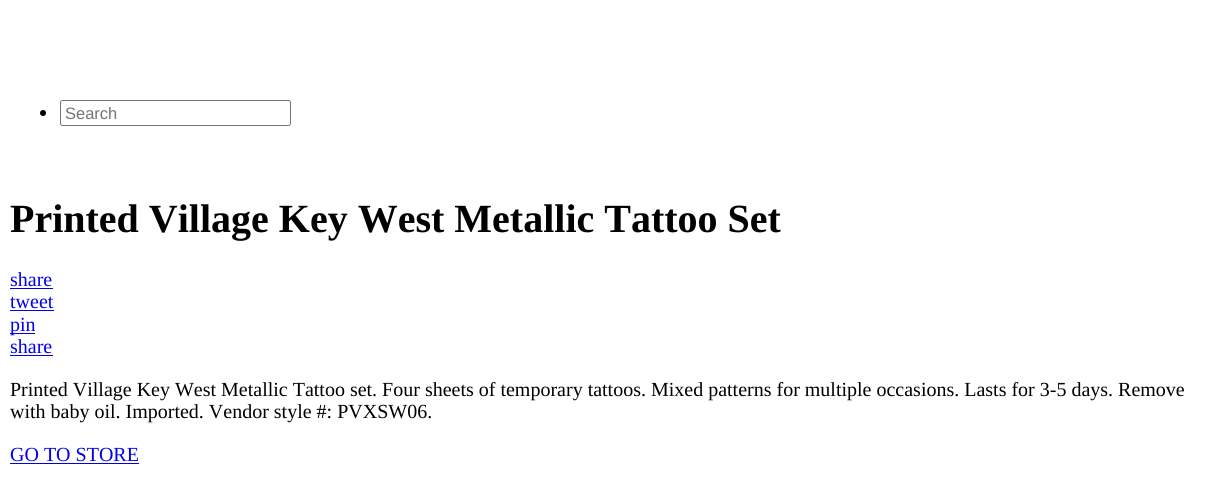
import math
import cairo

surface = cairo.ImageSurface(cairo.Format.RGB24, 1232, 501)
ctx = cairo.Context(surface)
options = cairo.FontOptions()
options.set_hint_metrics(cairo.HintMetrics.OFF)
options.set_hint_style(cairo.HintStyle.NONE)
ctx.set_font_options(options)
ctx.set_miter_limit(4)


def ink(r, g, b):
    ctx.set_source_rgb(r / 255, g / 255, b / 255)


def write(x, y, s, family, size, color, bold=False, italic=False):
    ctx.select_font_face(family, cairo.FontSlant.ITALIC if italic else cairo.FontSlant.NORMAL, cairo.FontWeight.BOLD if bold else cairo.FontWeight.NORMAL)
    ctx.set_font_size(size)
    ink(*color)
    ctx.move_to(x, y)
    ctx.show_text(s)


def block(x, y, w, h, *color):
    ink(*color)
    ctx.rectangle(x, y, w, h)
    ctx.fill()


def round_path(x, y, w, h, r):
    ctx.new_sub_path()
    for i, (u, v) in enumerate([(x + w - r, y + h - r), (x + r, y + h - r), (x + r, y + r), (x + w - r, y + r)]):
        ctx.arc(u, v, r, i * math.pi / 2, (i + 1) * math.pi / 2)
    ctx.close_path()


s1 = dict(family="Liberation Sans", size=16.5, color=(117, 117, 117))
s2 = dict(family="Liberation Serif", size=40, color=(0, 0, 0), bold=True)
s3 = dict(family="Liberation Serif", size=20, color=(0, 0, 238))
s4 = dict(family="Liberation Serif", size=20, color=(0, 0, 0))

ink(255, 255, 255)
ctx.paint()
ink(0, 0, 0)
ctx.arc(43, 113, 3, 0, 2 * math.pi)
ctx.fill()
round_path(60.5, 100.5, 230, 25, 2)
ink(118, 118, 118)
ctx.set_line_width(1)
ctx.stroke()
write(65, 119, "Search", **s1)
write(10, 232, "Printed Village Key West Metallic Tattoo Set", **s2)
write(10, 286, "share", **s3)
block(10, 288, 43, 1, 0, 0, 238)
write(10, 308, "tweet", **s3)
block(10, 310, 44, 1, 0, 0, 238)
block(10, 333, 25, 1, 0, 0, 238)
write(10, 331, "pin", **s3)
write(10, 353, "share", **s3)
block(10, 355, 43, 1, 0, 0, 238)
write(10, 396, "Printed Village Key West Metallic Tattoo set. Four sheets of temporary tattoos. Mixed patterns for multiple occasions. Lasts for 3-5 days. Remove", **s4)
write(10, 418, "with baby oil. Imported. Vendor style #: PVXSW06.", **s4)
write(10, 461, "GO TO STORE", **s3)
block(10, 463, 129, 1, 0, 0, 238)
surface.write_to_png("screenshot.png")
